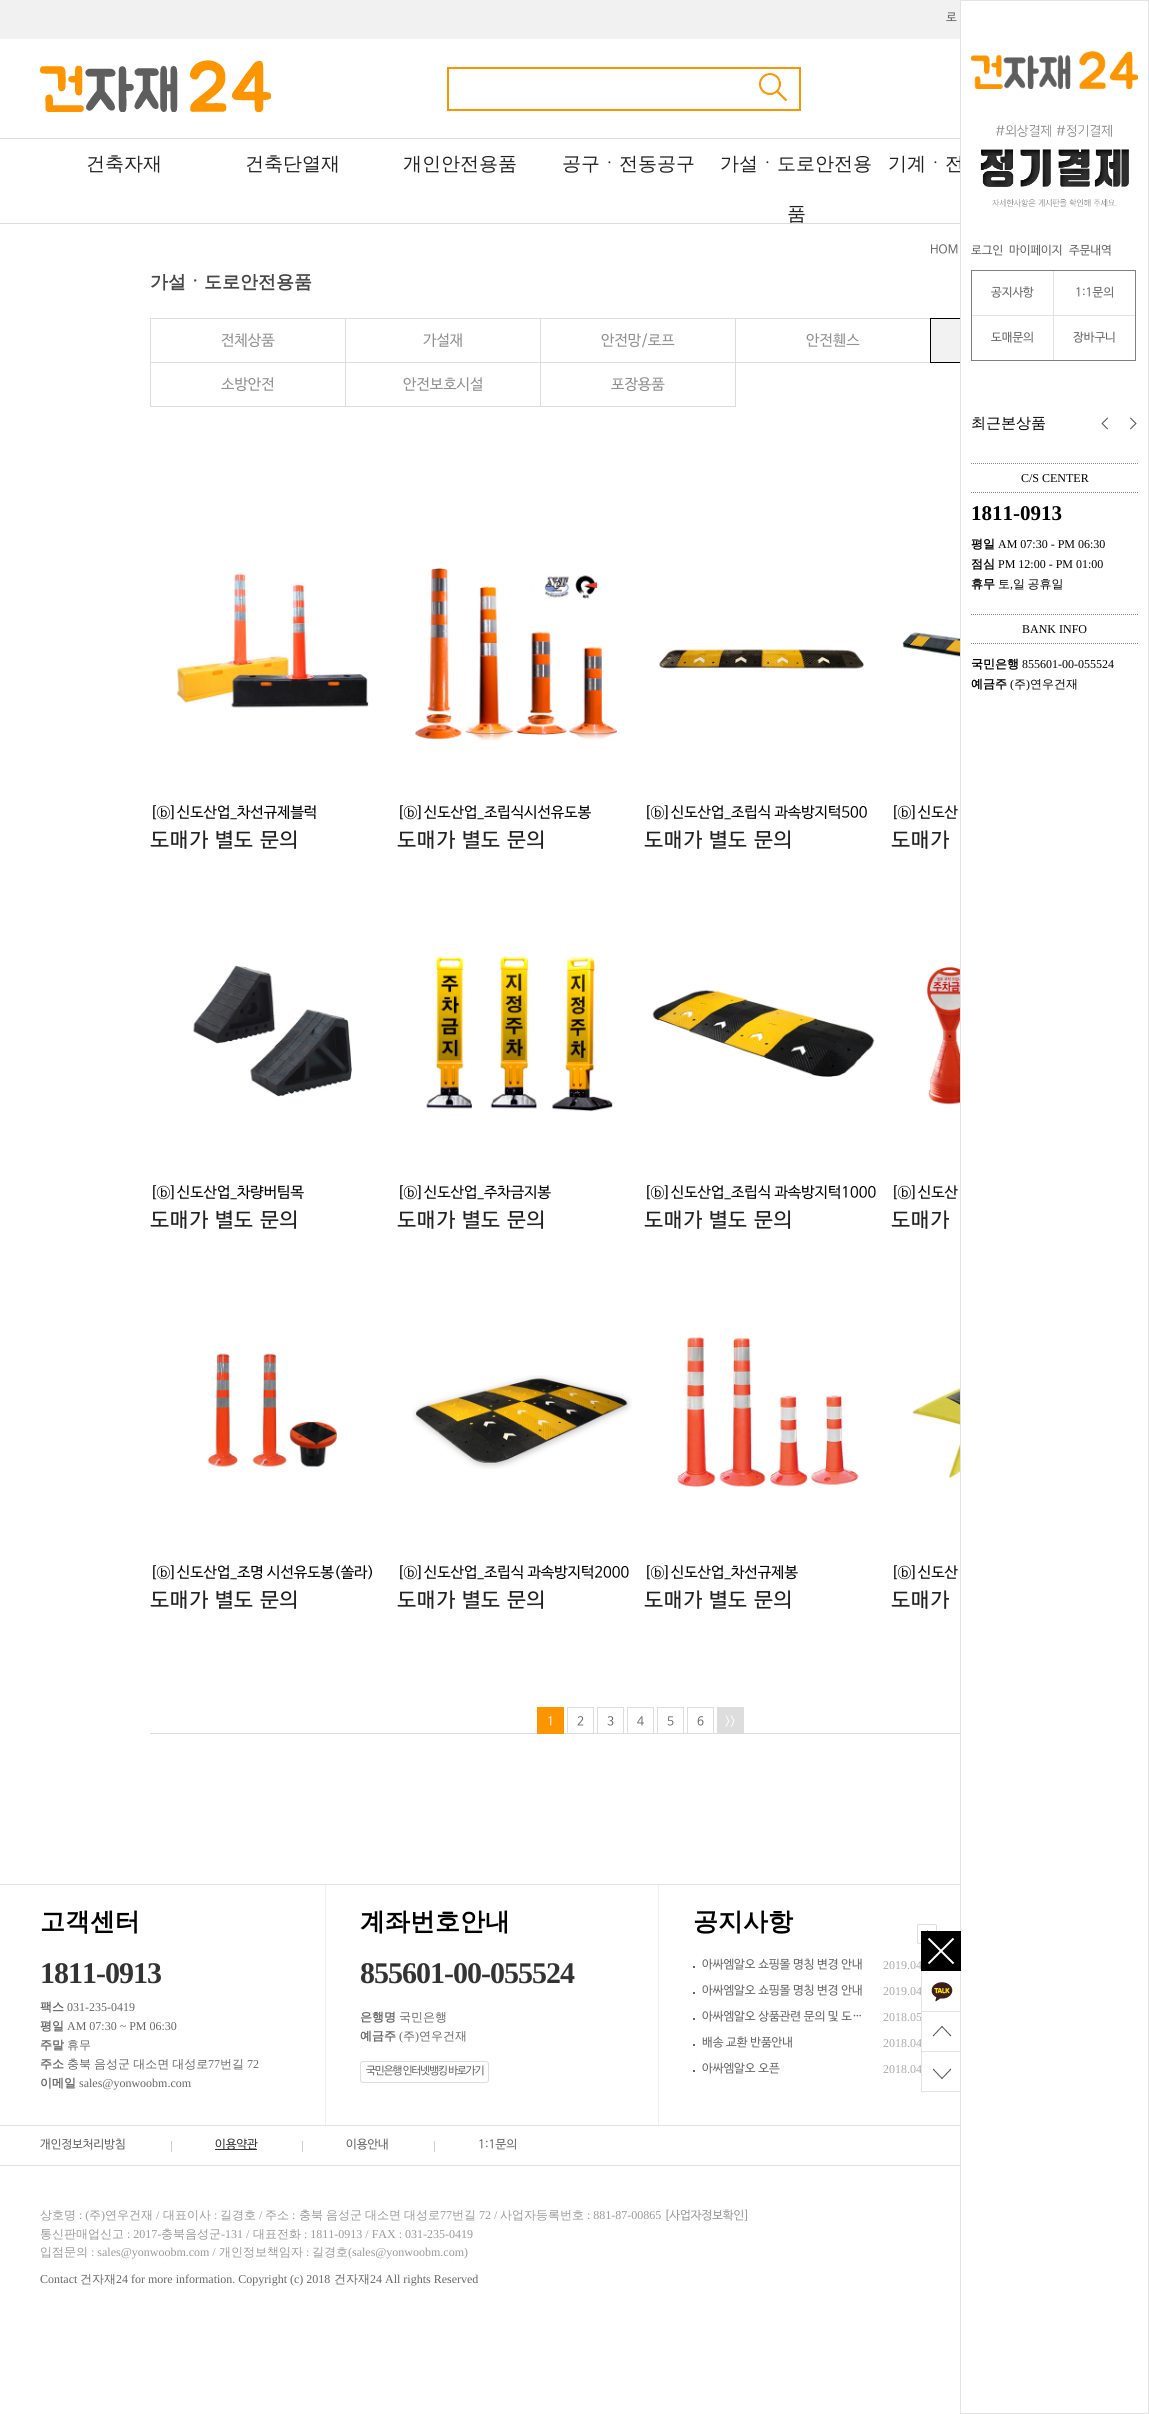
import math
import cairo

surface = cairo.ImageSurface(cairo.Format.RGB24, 1149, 2414)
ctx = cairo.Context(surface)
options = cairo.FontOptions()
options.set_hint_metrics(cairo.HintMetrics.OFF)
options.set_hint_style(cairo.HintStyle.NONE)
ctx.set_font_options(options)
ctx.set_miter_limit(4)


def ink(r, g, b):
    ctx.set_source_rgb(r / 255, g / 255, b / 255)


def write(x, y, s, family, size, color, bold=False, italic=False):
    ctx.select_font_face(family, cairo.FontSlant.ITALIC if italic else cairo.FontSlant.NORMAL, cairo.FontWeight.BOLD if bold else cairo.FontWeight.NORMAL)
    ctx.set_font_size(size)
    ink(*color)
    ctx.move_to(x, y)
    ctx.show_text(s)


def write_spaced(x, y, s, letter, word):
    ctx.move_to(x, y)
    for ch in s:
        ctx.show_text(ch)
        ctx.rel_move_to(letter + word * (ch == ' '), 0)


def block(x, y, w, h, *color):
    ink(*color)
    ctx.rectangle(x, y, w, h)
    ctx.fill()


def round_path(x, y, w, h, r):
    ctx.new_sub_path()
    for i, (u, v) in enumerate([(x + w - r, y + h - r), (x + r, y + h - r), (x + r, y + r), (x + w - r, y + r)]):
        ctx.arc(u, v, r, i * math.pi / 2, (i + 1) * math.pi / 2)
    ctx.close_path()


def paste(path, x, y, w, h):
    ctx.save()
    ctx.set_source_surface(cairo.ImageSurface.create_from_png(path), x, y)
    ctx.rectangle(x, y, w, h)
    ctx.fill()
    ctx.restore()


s1 = dict(family="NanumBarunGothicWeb", size=12, color=(102, 102, 102))
s2 = dict(family="WenQuanYi Zen Hei Medium", size=19, color=(34, 34, 34))
s3 = dict(family="WenQuanYi Zen Hei", size=18, color=(71, 71, 71), bold=True)
s4 = dict(family="NanumBarunGothicWeb", size=15, color=(145, 145, 145))
s5 = dict(family="NanumBarunGothicWeb", size=15, color=(0, 0, 0))
s6 = dict(family="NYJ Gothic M", size=21, color=(34, 34, 34))
s7 = dict(family="NanumBarunGothicWeb", size=12, color=(255, 255, 255))
s8 = dict(family="WenQuanYi Zen Hei", size=25, color=(0, 0, 0), bold=True)
s9 = dict(family="WenQuanYi Zen Hei", size=12, color=(102, 102, 102), bold=True)
s10 = dict(family="Liberation Serif", size=12, color=(102, 102, 102))
s11 = dict(family="WenQuanYi Zen Hei Medium", size=12, color=(102, 102, 102))
s12 = dict(family="Liberation Serif", size=12, color=(170, 170, 170))
s13 = dict(family="NanumBarunGothicWeb", size=12, color=(51, 51, 51))
s14 = dict(family="WenQuanYi Zen Hei Medium", size=12, color=(153, 153, 153))
s15 = dict(family="Liberation Serif", size=12, color=(153, 153, 153))
s16 = dict(family="NanumBarunGothicWeb", size=12, color=(153, 153, 153))
s17 = dict(family="WenQuanYi Zen Hei Medium", size=15, color=(0, 0, 0))
s18 = dict(family="Liberation Serif", size=12, color=(0, 0, 0))
s19 = dict(family="Liberation Serif", size=21, color=(0, 0, 0), bold=True)
s20 = dict(family="WenQuanYi Zen Hei", size=12, color=(0, 0, 0), bold=True)
s21 = dict(family="WenQuanYi Zen Hei Medium", size=12, color=(0, 0, 0))

ink(255, 255, 255)
ctx.paint()
block(0, 0, 960, 39, 241, 241, 242)
write(946, 21, "로", **s1)
paste("pic1.png", 40, 60, 231, 52)
ctx.rectangle(448, 68, 352, 42)
ink(252, 149, 0)
ctx.stroke()
paste("pic2.png", 759, 73, 28, 28)
block(0, 138, 960, 1, 221, 221, 221)
block(0, 223, 960, 1, 221, 221, 221)
write(86, 170, "건축자재", **s2)
write(245, 170, "건축단열재", **s2)
write(403, 170, "개인안전용품", **s2)
write(562, 170, "공구ㆍ전동공구", **s2)
write(720, 170, "가설ㆍ도로안전용", **s2)
write(787, 220, "품", **s2)
write(888, 170, "기계ㆍ전", **s2)
write(930, 253, "HOM", **s1)
write(150, 288, "가설ㆍ도로안전용품", **s3)
ctx.rectangle(150.5, 318.5, 195, 44)
ink(221, 221, 221)
ctx.set_line_width(1)
ctx.stroke()
write(221, 345, "전체상품", **s4)
ctx.rectangle(345.5, 318.5, 195, 44)
ink(221, 221, 221)
ctx.stroke()
write(423, 345, "가설재", **s4)
ctx.rectangle(540.5, 318.5, 195, 44)
ink(221, 221, 221)
ctx.stroke()
write(601, 345, "안전망/로프", **s4)
ctx.rectangle(735.5, 318.5, 195, 44)
ink(221, 221, 221)
ctx.stroke()
write(806, 345, "안전휀스", **s4)
block(931, 319, 29, 43, 242, 242, 242)
ctx.rectangle(930.5, 318.5, 195, 44)
ink(0, 0, 0)
ctx.stroke()
ctx.rectangle(150.5, 362.5, 195, 44)
ink(221, 221, 221)
ctx.stroke()
write(221, 389, "소방안전", **s4)
ctx.rectangle(345.5, 362.5, 195, 44)
ink(221, 221, 221)
ctx.stroke()
write(403, 389, "안전보호시설", **s4)
ctx.rectangle(540.5, 362.5, 195, 44)
ink(221, 221, 221)
ctx.stroke()
write(611, 389, "포장용품", **s4)
paste("pic3.png", 176, 573, 193, 135)
write(150, 817, "[ⓑ]신도산업_차선규제블럭", **s5)
write(150, 846, "도매가 별도 문의", **s6)
paste("pic4.png", 415, 568, 202, 173)
write(397, 817, "[ⓑ]신도산업_조립식시선유도봉", **s5)
write(397, 846, "도매가 별도 문의", **s6)
paste("pic5.png", 659, 649, 205, 20)
write(644, 817, "[ⓑ]신도산업_조립식 과속방지턱500", **s5)
write(644, 846, "도매가 별도 문의", **s6)
paste("pic6.png", 902, 632, 58, 78)
write(891, 817, "[ⓑ]신도산", **s5)
write(891, 846, "도매가", **s6)
paste("pic7.png", 193, 965, 159, 132)
write(150, 1197, "[ⓑ]신도산업_차량버팀목", **s5)
write(150, 1226, "도매가 별도 문의", **s6)
paste("pic8.png", 426, 956, 187, 156)
write(397, 1197, "[ⓑ]신도산업_주차금지봉", **s5)
write(397, 1226, "도매가 별도 문의", **s6)
paste("pic9.png", 652, 989, 223, 88)
write(644, 1197, "[ⓑ]신도산업_조립식 과속방지턱1000", **s5)
write(644, 1226, "도매가 별도 문의", **s6)
paste("pic10.png", 926, 967, 34, 138)
write(891, 1197, "[ⓑ]신도산", **s5)
write(891, 1226, "도매가", **s6)
paste("pic11.png", 207, 1353, 130, 114)
write(150, 1577, "[ⓑ]신도산업_조명 시선유도봉(쏠라)", **s5)
write(150, 1606, "도매가 별도 문의", **s6)
paste("pic12.png", 412, 1375, 220, 94)
write(397, 1577, "[ⓑ]신도산업_조립식 과속방지턱2000", **s5)
write(397, 1606, "도매가 별도 문의", **s6)
paste("pic13.png", 677, 1337, 182, 150)
write(644, 1577, "[ⓑ]신도산업_차선규제봉", **s5)
write(644, 1606, "도매가 별도 문의", **s6)
paste("pic14.png", 912, 1342, 48, 136)
write(891, 1577, "[ⓑ]신도산", **s5)
write(891, 1606, "도매가", **s6)
block(150, 1733, 810, 1, 221, 221, 221)
block(537, 1707, 27, 27, 252, 149, 0)
write(547, 1725, "1", **s7)
ctx.rectangle(567.5, 1707.5, 26, 26)
ink(221, 221, 221)
ctx.stroke()
write(577, 1725, "2", **s1)
ctx.rectangle(597.5, 1707.5, 26, 26)
ink(221, 221, 221)
ctx.stroke()
write(607, 1725, "3", **s1)
ctx.rectangle(627.5, 1707.5, 26, 26)
ink(221, 221, 221)
ctx.stroke()
write(637, 1725, "4", **s1)
ctx.rectangle(657.5, 1707.5, 26, 26)
ink(221, 221, 221)
ctx.stroke()
write(667, 1725, "5", **s1)
ctx.rectangle(687.5, 1707.5, 26, 26)
ink(221, 221, 221)
ctx.stroke()
write(697, 1725, "6", **s1)
block(717, 1707, 27, 26, 221, 221, 221)
write(725, 1725, ">>", **s7)
block(0, 1884, 960, 1, 227, 227, 227)
block(325, 1885, 1, 240, 238, 238, 238)
write(40, 1930, "고객센터", **s8)
ctx.select_font_face("Liberation Serif", cairo.FontSlant.NORMAL, cairo.FontWeight.BOLD)
ctx.set_font_size(30)
ink(51, 51, 51)
write_spaced(40, 1983, "1811-0913", -1, 0)
write(40, 2011, "팩스", **s9)
write(67, 2011, "031-235-0419", **s10)
write(40, 2030, "평일", **s9)
write(67, 2030, "AM 07:30 ~ PM 06:30", **s10)
write(40, 2049, "주말", **s9)
write(67, 2049, "휴무", **s11)
write(40, 2068, "주소", **s9)
ctx.select_font_face("WenQuanYi Zen Hei Medium")
write_spaced(67, 2068, "충북 음성군 대소면 대성로", 0, -0.5)
write(208, 2068, "77", **s10)
write(220, 2068, "번길", **s11)
write(247, 2068, "72", **s10)
write(40, 2087, "이메일", **s9)
write(79, 2087, "sales@yonwoobm.com", **s10)
block(658, 1885, 1, 240, 238, 238, 238)
write(360, 1930, "계좌번호안내", **s8)
ctx.select_font_face("Liberation Serif", cairo.FontSlant.NORMAL, cairo.FontWeight.BOLD)
ctx.set_font_size(30)
ink(51, 51, 51)
write_spaced(360, 1983, "855601-00-055524", -1, 0)
write(360, 2021, "은행명", **s9)
write(399, 2021, "국민은행", **s11)
write(360, 2040, "예금주", **s9)
write(399, 2040, "(", **s10)
write(403, 2040, "주", **s11)
write(415, 2040, ")", **s10)
write(419, 2040, "연우건재", **s11)
round_path(360.5, 2061.5, 128, 21, 2.5)
ink(221, 221, 221)
ctx.stroke()
ctx.select_font_face("NanumBarunGothicWeb")
ctx.set_font_size(11)
ink(102, 102, 102)
write_spaced(366, 2074, "국민은행 인터넷뱅킹 바로가기", -1, 0)
write(693, 1930, "공지사항", **s8)
paste("pic15.png", 917, 1924, 20, 20)
block(693, 1966, 2, 2, 102, 102, 102)
write(702, 1968, "아싸엠알오 쇼핑몰 명칭 변경 안내", **s1)
write(883, 1969, "2019.04", **s12)
block(693, 1992, 2, 2, 102, 102, 102)
write(702, 1994, "아싸엠알오 쇼핑몰 명칭 변경 안내", **s1)
write(883, 1995, "2019.04", **s12)
block(693, 2018, 2, 2, 102, 102, 102)
write(702, 2020, "아싸엠알오 상품관련 문의 및 도…", **s1)
write(883, 2021, "2018.05", **s12)
block(693, 2044, 2, 2, 102, 102, 102)
write(702, 2046, "배송 교환 반품안내", **s1)
write(883, 2047, "2018.04", **s12)
block(693, 2070, 2, 2, 102, 102, 102)
write(702, 2072, "아싸엠알오 오픈", **s1)
write(883, 2073, "2018.04", **s12)
block(0, 2125, 960, 1, 227, 227, 227)
block(0, 2165, 960, 1, 227, 227, 227)
write(40, 2148, "개인정보처리방침", **s1)
block(171, 2141, 1, 11, 204, 204, 204)
block(215, 2149, 42, 1, 51, 51, 51)
write(215, 2148, "이용약관", **s13)
block(302, 2141, 1, 11, 204, 204, 204)
write(346, 2148, "이용안내", **s1)
block(434, 2141, 1, 11, 204, 204, 204)
write(478, 2148, "1:1문의", **s1)
write(40, 2219, "상호명", **s14)
write(79, 2219, ": (", **s15)
write(89, 2219, "주", **s14)
write(101, 2219, ")", **s15)
write(105, 2219, "연우건재", **s14)
write(156, 2219, "/", **s15)
write(163, 2219, "대표이사", **s14)
write(214, 2219, ":", **s15)
write(220, 2219, "길경호", **s14)
write(259, 2219, "/", **s15)
write(265, 2219, "주소", **s14)
write(292, 2219, ":", **s15)
write(299, 2219, "충북", **s14)
write(326, 2219, "음성군", **s14)
write(365, 2219, "대소면", **s14)
write(404, 2219, "대성로", **s14)
write(440, 2219, "77", **s15)
write(452, 2219, "번길", **s14)
write(479, 2219, "72 /", **s15)
write(500, 2219, "사업자등록번호", **s14)
write(587, 2219, ": 881-87-00865", **s15)
write(664, 2219, "[사업자정보확인]", **s16)
write(40, 2238, "통신판매업신고", **s14)
write(127, 2238, ": 2017-", **s15)
write(161, 2238, "충북음성군", **s14)
write(221, 2238, "-131 /", **s15)
write(253, 2238, "대표전화", **s14)
write(304, 2238, ": 1811-0913 / FAX : 031-235-0419", **s15)
write(40, 2256, "입점문의", **s14)
write(91, 2256, ": sales@yonwoobm.com /", **s15)
write(219, 2256, "개인정보책임자", **s14)
write(306, 2256, ":", **s15)
write(312, 2256, "길경호", **s14)
write(348, 2256, "(sales@yonwoobm.com)", **s15)
write(40, 2283, "Contact", **s10)
write(80, 2283, "건자재", **s11)
write(116, 2283, "24 for more information. Copyright (c) 2018", **s10)
write(334, 2283, "건자재", **s11)
write(370, 2283, "24 All rights Reserved", **s10)
block(961, 155, 165, 208, 255, 255, 255)
ctx.rectangle(960.5, 0.5, 188, 2413)
ink(227, 227, 227)
ctx.stroke()
paste("pic16.png", 971, 51, 167, 38)
paste("pic17.png", 980, 124, 149, 83)
write(971, 254, "로그인", **s1)
write(1009, 254, "마이페이지", **s1)
write(1069, 254, "주문내역", **s1)
ctx.rectangle(971.5, 270.5, 164, 90)
ink(127, 127, 127)
ctx.stroke()
block(1053, 271, 1, 89, 226, 226, 226)
block(972, 315, 163, 1, 226, 226, 226)
write(991, 296, "공지사항", **s1)
write(1075, 296, "1:1문의", **s1)
write(991, 341, "도매문의", **s1)
write(1073, 341, "장바구니", **s1)
write(971, 428, "최근본상품", **s17)
paste("pic18.png", 1101, 417, 7, 13)
paste("pic19.png", 1130, 417, 7, 13)
ctx.new_path()
ctx.move_to(971, 463.5)
ctx.line_to(1138, 463.5)
ink(136, 136, 136)
ctx.set_dash([1, 1])
ctx.stroke()
ctx.new_path()
ctx.move_to(971, 492.5)
ctx.line_to(1138, 492.5)
ctx.stroke()
write(1021, 482, "C/S CENTER", **s18)
write(971, 520, "1811-0913", **s19)
write(971, 548, "평일", **s20)
write(998, 548, "AM 07:30 - PM 06:30", **s18)
write(971, 568, "점심", **s20)
write(998, 568, "PM 12:00 - PM 01:00", **s18)
write(971, 588, "휴무", **s20)
write(998, 588, "토", **s21)
write(1010, 588, ",", **s18)
ctx.select_font_face("WenQuanYi Zen Hei Medium")
write_spaced(1013, 588, "일 공휴일", 0, -1)
ctx.new_path()
ctx.move_to(971, 614.5)
ctx.line_to(1138, 614.5)
ink(136, 136, 136)
ctx.stroke()
ctx.new_path()
ctx.move_to(971, 643.5)
ctx.line_to(1138, 643.5)
ctx.stroke()
write(1022, 633, "BANK INFO", **s18)
write(971, 668, "국민은행", **s20)
write(1022, 668, "855601-00-055524", **s18)
write(971, 688, "예금주", **s20)
write(1010, 688, "(", **s18)
write(1014, 688, "주", **s21)
write(1026, 688, ")", **s18)
write(1030, 688, "연우건재", **s21)
block(921, 1931, 40, 40, 0, 0, 0)
ctx.new_path()
ctx.move_to(928.5, 1938.5)
ctx.line_to(953.5, 1963.5)
ctx.move_to(953.5, 1938.5)
ctx.line_to(928.5, 1963.5)
ink(255, 255, 255)
ctx.set_line_width(2)
ctx.set_dash([])
ctx.stroke()
block(921, 2011, 40, 1, 227, 227, 227)
block(921, 1971, 1, 41, 227, 227, 227)
paste("pic20.png", 931, 1982, 22, 20)
block(921, 2051, 40, 1, 227, 227, 227)
block(921, 2012, 1, 40, 227, 227, 227)
paste("pic21.png", 932, 2025, 20, 12)
block(921, 2091, 40, 1, 227, 227, 227)
block(921, 2052, 1, 40, 227, 227, 227)
paste("pic22.png", 932, 2068, 20, 12)
surface.write_to_png("screenshot.png")
